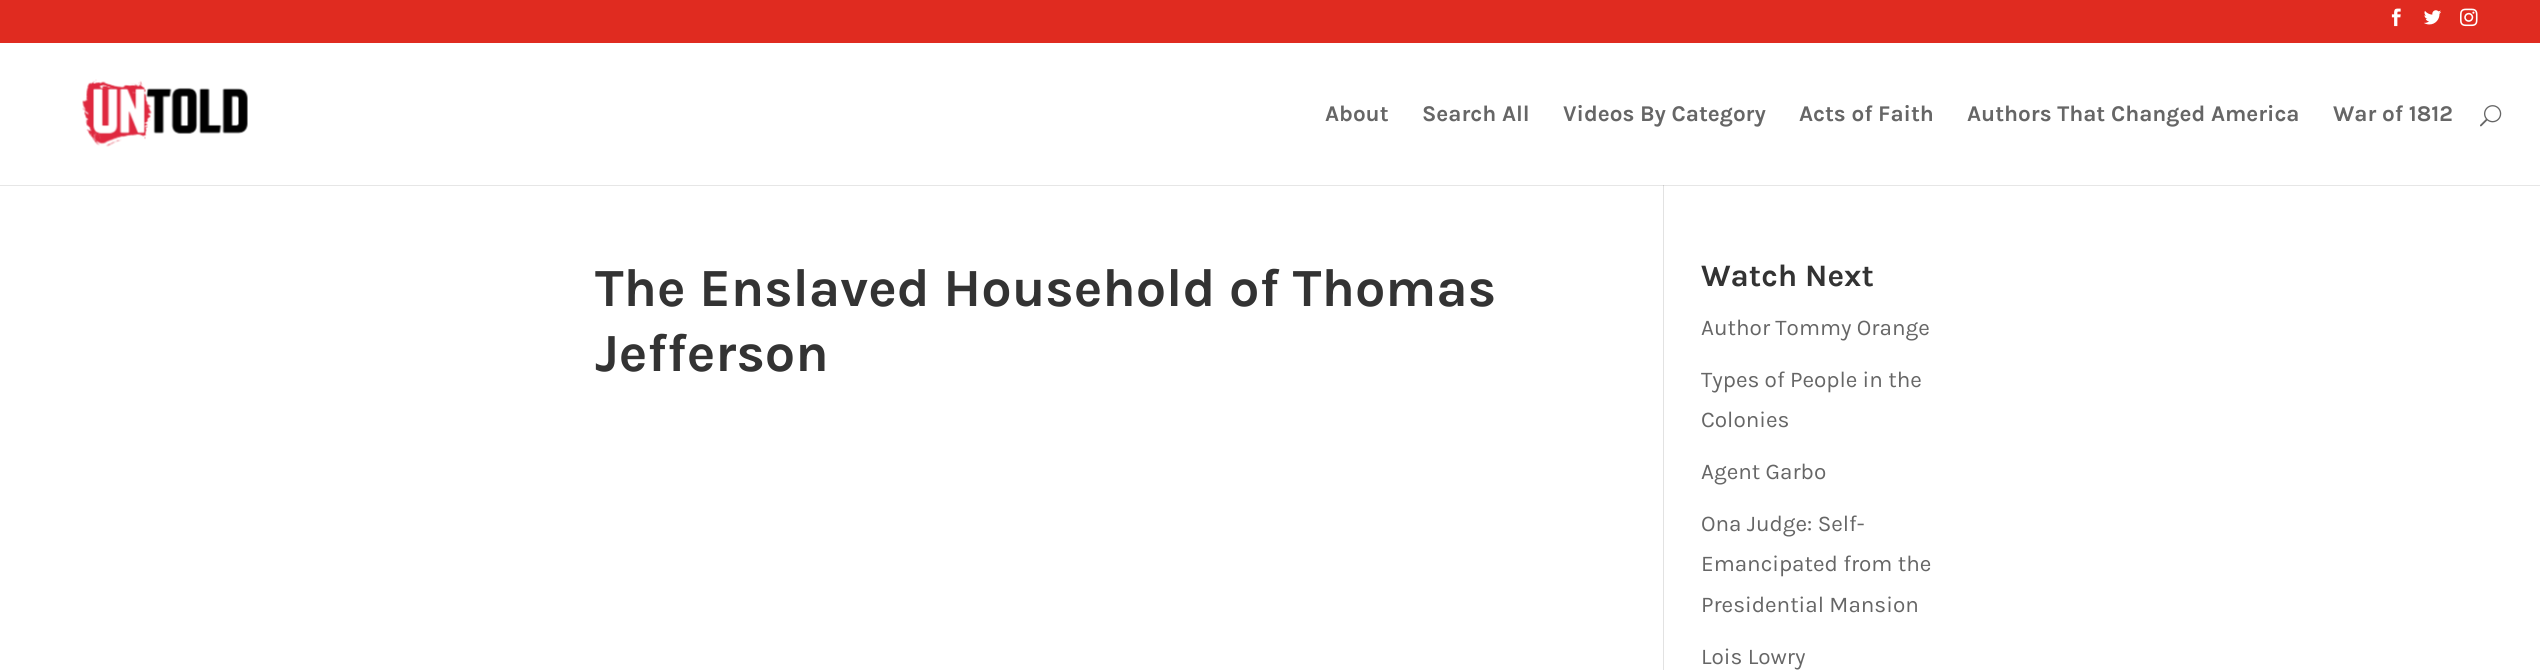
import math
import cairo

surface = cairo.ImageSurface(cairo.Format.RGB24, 2540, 670)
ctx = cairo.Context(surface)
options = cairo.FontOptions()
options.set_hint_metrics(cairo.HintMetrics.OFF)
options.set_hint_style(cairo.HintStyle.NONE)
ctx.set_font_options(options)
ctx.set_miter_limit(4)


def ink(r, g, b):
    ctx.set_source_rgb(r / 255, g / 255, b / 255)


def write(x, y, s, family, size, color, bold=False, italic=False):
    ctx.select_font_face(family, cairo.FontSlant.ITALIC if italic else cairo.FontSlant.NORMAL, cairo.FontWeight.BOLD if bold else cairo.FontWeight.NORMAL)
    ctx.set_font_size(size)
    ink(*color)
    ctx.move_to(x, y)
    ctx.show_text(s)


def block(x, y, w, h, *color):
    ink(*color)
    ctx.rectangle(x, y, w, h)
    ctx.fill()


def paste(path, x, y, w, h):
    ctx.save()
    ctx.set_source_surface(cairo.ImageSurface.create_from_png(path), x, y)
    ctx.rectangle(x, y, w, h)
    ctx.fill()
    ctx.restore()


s1 = dict(family="Karla", size=22.5, color=(102, 102, 102), bold=True)
s2 = dict(family="Karla", size=53.75, color=(51, 51, 51), bold=True)
s3 = dict(family="Karla", size=31.25, color=(51, 51, 51), bold=True)
s4 = dict(family="Karla", size=22.5, color=(102, 102, 102))

ink(255, 255, 255)
ctx.paint()
block(0, 185, 2540, 1, 230, 230, 230)
block(0, 0, 2540, 43, 224, 43, 32)
paste("pic1.png", 2391, 8, 10, 19)
paste("pic2.png", 2424, 10, 17, 15)
paste("pic3.png", 2460, 8, 18, 19)
paste("pic4.png", 82, 79, 166, 68)
write(1325, 121, "About", **s1)
write(1422, 121, "Search All", **s1)
write(1563, 121, "Videos By Category", **s1)
write(1799, 121, "Acts of Faith", **s1)
write(1967, 121, "Authors That Changed America", **s1)
write(2333, 121, "War of 1812", **s1)
paste("pic5.png", 2480, 105, 22, 22)
block(1663, 185, 1, 485, 226, 226, 226)
block(1663, 185, 1, 1, 203, 203, 203)
write(595, 306, "The Enslaved Household of Thomas", **s2)
write(595, 371, "Jefferson", **s2)
write(1701, 286, "Watch Next", **s3)
write(1701, 335, "Author Tommy Orange", **s4)
write(1701, 387, "Types of People in the", **s4)
write(1701, 427, "Colonies", **s4)
write(1701, 479, "Agent Garbo", **s4)
write(1701, 531, "Ona Judge: Self-", **s4)
write(1701, 571, "Emancipated from the", **s4)
write(1701, 612, "Presidential Mansion", **s4)
write(1701, 664, "Lois Lowry", **s4)
surface.write_to_png("screenshot.png")
